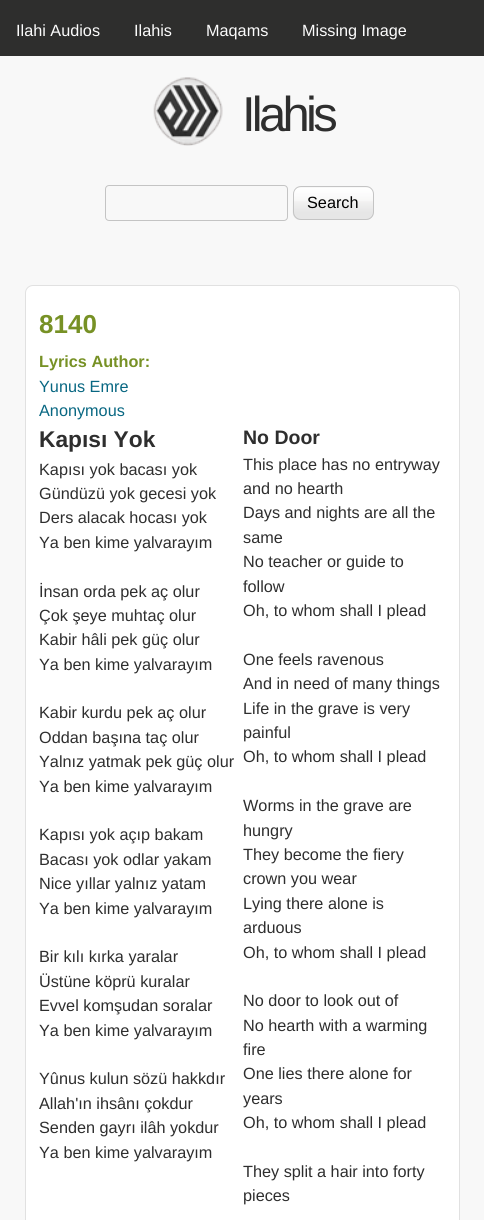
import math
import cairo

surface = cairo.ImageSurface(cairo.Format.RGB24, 484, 1220)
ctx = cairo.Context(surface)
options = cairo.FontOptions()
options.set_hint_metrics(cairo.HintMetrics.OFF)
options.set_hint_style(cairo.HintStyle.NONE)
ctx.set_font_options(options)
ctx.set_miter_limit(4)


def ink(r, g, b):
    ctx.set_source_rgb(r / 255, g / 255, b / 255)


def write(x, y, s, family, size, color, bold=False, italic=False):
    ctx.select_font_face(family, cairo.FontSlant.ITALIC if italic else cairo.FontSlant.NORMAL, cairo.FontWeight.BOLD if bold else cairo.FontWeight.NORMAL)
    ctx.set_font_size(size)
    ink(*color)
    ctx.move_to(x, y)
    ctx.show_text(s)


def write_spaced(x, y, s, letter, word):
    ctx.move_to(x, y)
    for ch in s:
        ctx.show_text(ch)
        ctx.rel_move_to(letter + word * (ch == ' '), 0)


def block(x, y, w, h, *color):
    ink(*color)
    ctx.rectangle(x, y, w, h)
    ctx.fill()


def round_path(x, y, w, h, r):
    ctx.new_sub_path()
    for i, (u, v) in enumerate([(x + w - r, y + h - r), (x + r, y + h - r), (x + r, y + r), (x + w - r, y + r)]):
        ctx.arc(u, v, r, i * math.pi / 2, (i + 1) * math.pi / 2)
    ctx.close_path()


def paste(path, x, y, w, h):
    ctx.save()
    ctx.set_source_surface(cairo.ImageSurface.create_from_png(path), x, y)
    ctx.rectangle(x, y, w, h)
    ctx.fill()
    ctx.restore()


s1 = dict(family="Liberation Sans", size=16.25, color=(252, 252, 252))
s2 = dict(family="Liberation Sans", size=16.25, color=(0, 0, 0))
s3 = dict(family="Liberation Sans", size=26, color=(119, 145, 37), bold=True)
s4 = dict(family="Liberation Sans", size=16.25, color=(119, 145, 37), bold=True)
s5 = dict(family="Liberation Sans", size=16.25, color=(8, 103, 130))
s6 = dict(family="Liberation Sans", size=22.75, color=(46, 46, 46), bold=True)
s7 = dict(family="Liberation Sans", size=16.25, color=(46, 46, 46))
s8 = dict(family="Liberation Sans", size=19.5, color=(46, 46, 46), bold=True)

ink(248, 248, 248)
ctx.paint()
block(0, 0, 484, 56, 46, 46, 45)
write(16, 36, "Ilahi Audios", **s1)
write(134, 36, "Ilahis", **s1)
write(206, 36, "Maqams", **s1)
write(302, 36, "Missing Image", **s1)
paste("pic1.png", 153, 77, 70, 69)
ctx.set_font_size(49)
ink(46, 46, 46)
write_spaced(242, 131, "Ilahis", -3.75, 0)
round_path(105.5, 185.5, 182, 35, 3.5)
ink(196, 196, 196)
ctx.set_line_width(1)
ctx.stroke()
paste("pic2.png", 292, 188, 82, 32)
round_path(293.5, 186.5, 80, 33, 7.5)
ctx.stroke()
write(307, 208, "Search", **s2)
ink(255, 255, 255)
round_path(25.5, 285.5, 434, 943, 7.5)
ctx.fill_preserve()
ink(225, 225, 225)
ctx.stroke()
write(39, 333, "8140", **s3)
write(39, 367, "Lyrics Author:", **s4)
write(39, 392, "Yunus Emre", **s5)
write(39, 416, "Anonymous", **s5)
write(39, 447, "Kapısı Yok", **s6)
write(39, 475, "Kapısı yok bacası yok", **s7)
write(39, 499, "Gündüzü yok gecesi yok", **s7)
write(39, 523, "Ders alacak hocası yok", **s7)
write(39, 548, "Ya ben kime yalvarayım", **s7)
write(39, 597, "İnsan orda pek aç olur", **s7)
write(39, 621, "Çok şeye muhtaç olur", **s7)
write(39, 645, "Kabir hâli pek güç olur", **s7)
write(39, 670, "Ya ben kime yalvarayım", **s7)
write(39, 718, "Kabir kurdu pek aç olur", **s7)
write(39, 743, "Oddan başına taç olur", **s7)
write(39, 767, "Yalnız yatmak pek güç olur", **s7)
write(39, 792, "Ya ben kime yalvarayım", **s7)
write(39, 840, "Kapısı yok açıp bakam", **s7)
write(39, 865, "Bacası yok odlar yakam", **s7)
write(39, 889, "Nice yıllar yalnız yatam", **s7)
write(39, 914, "Ya ben kime yalvarayım", **s7)
write(39, 962, "Bir kılı kırka yaralar", **s7)
write(39, 987, "Üstüne köprü kuralar", **s7)
write(39, 1011, "Evvel komşudan soralar", **s7)
write(39, 1036, "Ya ben kime yalvarayım", **s7)
write(39, 1084, "Yûnus kulun sözü hakkdır", **s7)
write(39, 1109, "Allah'ın ihsânı çokdur", **s7)
write(39, 1133, "Senden gayrı ilâh yokdur", **s7)
write(39, 1158, "Ya ben kime yalvarayım", **s7)
write(243, 444, "No Door", **s8)
write(243, 470, "This place has no entryway", **s7)
write(243, 494, "and no hearth", **s7)
write(243, 518, "Days and nights are all the", **s7)
write(243, 543, "same", **s7)
write(243, 567, "No teacher or guide to", **s7)
write(243, 592, "follow", **s7)
write(243, 616, "Oh, to whom shall I plead", **s7)
write(243, 665, "One feels ravenous", **s7)
write(243, 689, "And in need of many things", **s7)
write(243, 714, "Life in the grave is very", **s7)
write(243, 738, "painful", **s7)
write(243, 762, "Oh, to whom shall I plead", **s7)
write(243, 811, "Worms in the grave are", **s7)
write(243, 836, "hungry", **s7)
write(243, 860, "They become the fiery", **s7)
write(243, 884, "crown you wear", **s7)
write(243, 909, "Lying there alone is", **s7)
write(243, 933, "arduous", **s7)
write(243, 958, "Oh, to whom shall I plead", **s7)
write(243, 1006, "No door to look out of", **s7)
write(243, 1031, "No hearth with a warming", **s7)
write(243, 1055, "fire", **s7)
write(243, 1079, "One lies there alone for", **s7)
write(243, 1104, "years", **s7)
write(243, 1128, "Oh, to whom shall I plead", **s7)
write(243, 1177, "They split a hair into forty", **s7)
write(243, 1201, "pieces", **s7)
surface.write_to_png("screenshot.png")
